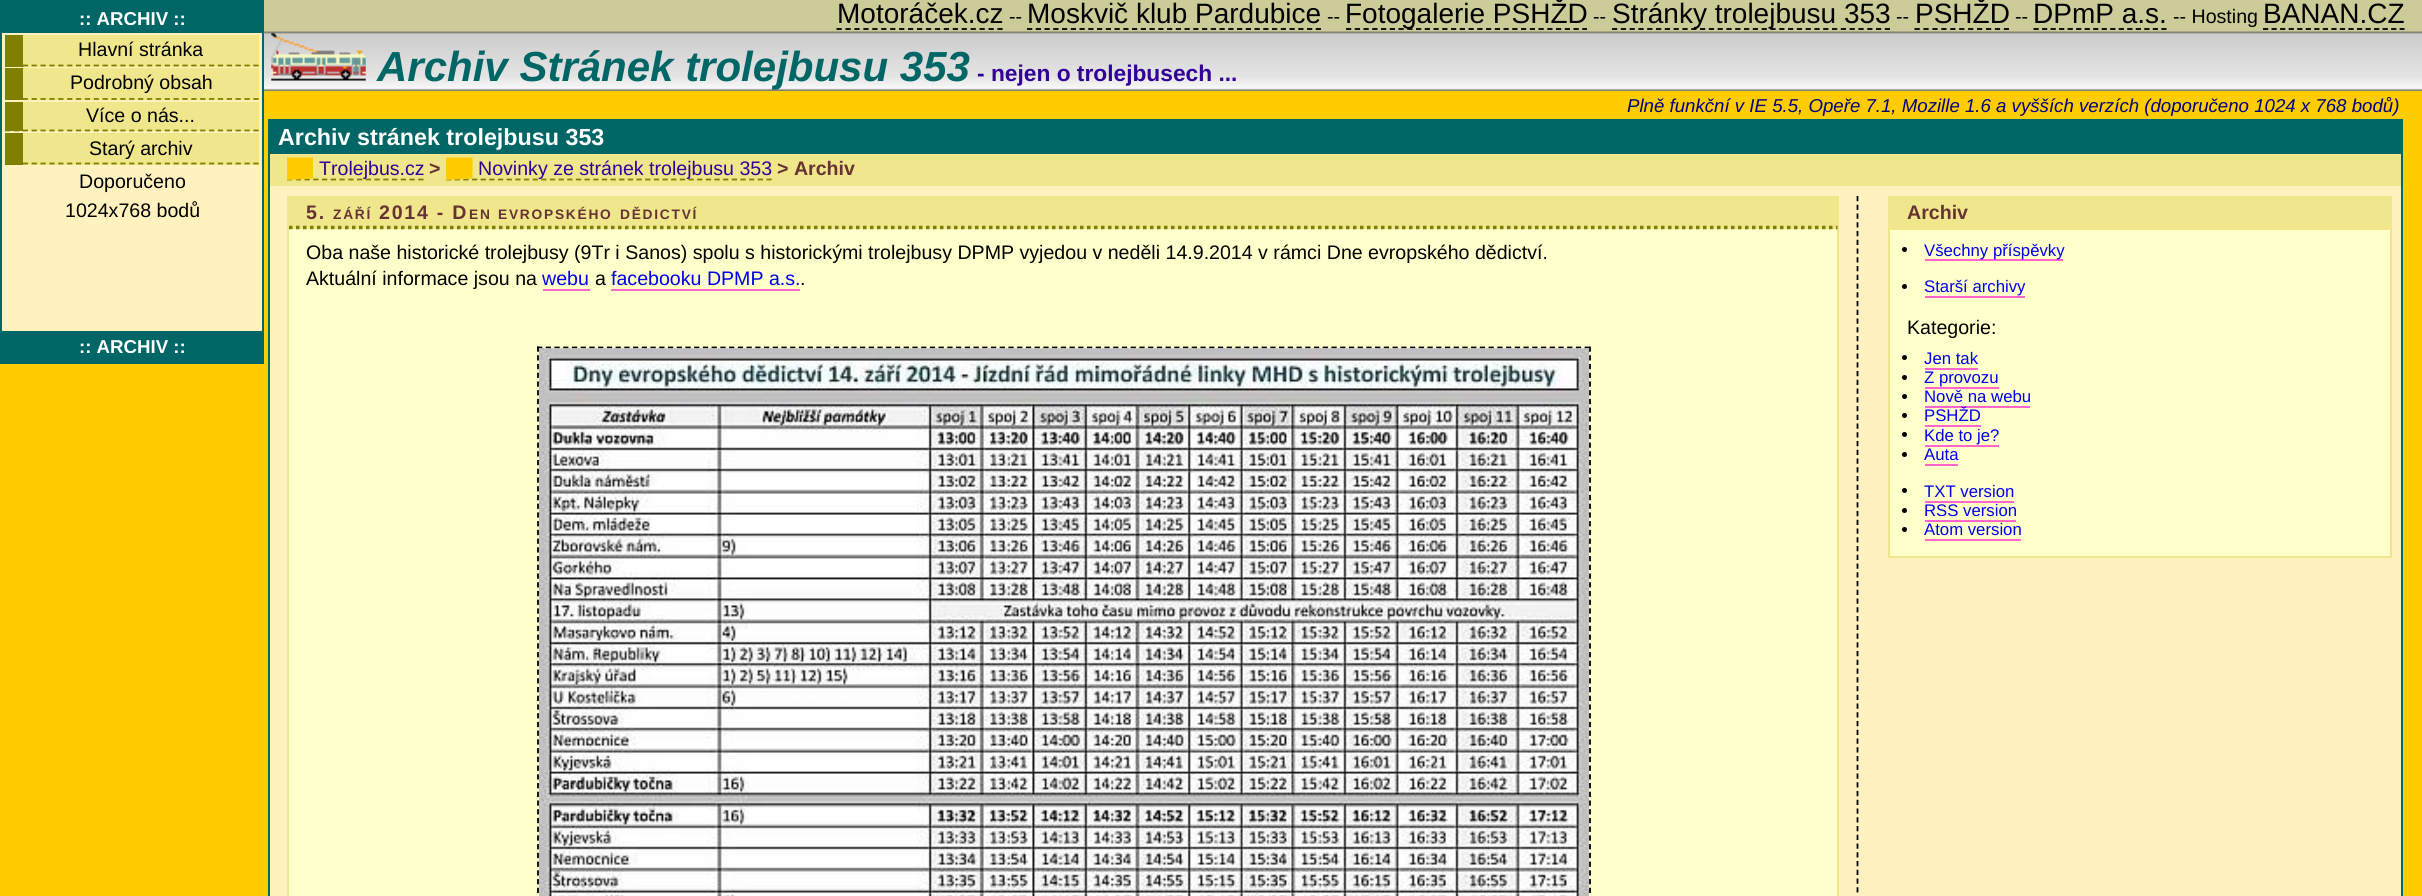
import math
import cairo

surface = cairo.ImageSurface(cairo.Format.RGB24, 2422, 896)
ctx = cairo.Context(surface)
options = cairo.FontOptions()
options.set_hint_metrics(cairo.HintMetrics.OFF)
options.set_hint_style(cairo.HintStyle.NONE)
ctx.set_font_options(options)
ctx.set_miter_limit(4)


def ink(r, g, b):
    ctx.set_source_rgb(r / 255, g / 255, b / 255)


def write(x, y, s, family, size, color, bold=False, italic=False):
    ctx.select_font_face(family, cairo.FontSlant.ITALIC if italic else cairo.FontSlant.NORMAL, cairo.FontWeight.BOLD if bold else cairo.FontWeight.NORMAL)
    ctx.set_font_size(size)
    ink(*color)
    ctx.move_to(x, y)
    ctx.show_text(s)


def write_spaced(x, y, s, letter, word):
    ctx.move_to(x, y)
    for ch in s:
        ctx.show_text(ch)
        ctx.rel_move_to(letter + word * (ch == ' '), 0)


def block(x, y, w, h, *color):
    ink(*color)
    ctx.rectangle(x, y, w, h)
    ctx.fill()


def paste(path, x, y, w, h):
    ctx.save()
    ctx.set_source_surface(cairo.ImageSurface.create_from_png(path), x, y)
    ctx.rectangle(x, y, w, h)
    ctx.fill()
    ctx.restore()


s1 = dict(family="Liberation Sans", size=18.65, color=(255, 255, 255), bold=True)
s2 = dict(family="Liberation Sans", size=19.6, color=(0, 0, 0))
s3 = dict(family="Liberation Sans", size=28, color=(0, 0, 0))
s4 = dict(family="Liberation Sans", size=42, color=(0, 102, 102), bold=True, italic=True)
s5 = dict(family="Liberation Sans", size=22.75, color=(51, 0, 153), bold=True)
s6 = dict(family="Liberation Sans", size=18.65, color=(0, 0, 128), italic=True)
s7 = dict(family="Liberation Sans", size=23.3, color=(255, 255, 255), bold=True)
s8 = dict(family="Liberation Sans", size=19.6, color=(51, 0, 153))
s9 = dict(family="Liberation Sans", size=19.6, color=(102, 51, 51), bold=True)
s10 = dict(family="Liberation Sans", size=19.6, color=(0, 0, 238))
s11 = dict(family="Liberation Sans", size=16.75, color=(0, 0, 238))

ink(255, 204, 0)
ctx.paint()
paste("pic1.png", 264, 0, 2158, 91)
block(2, 33, 260, 298, 255, 242, 191)
ctx.rectangle(1, 1, 262, 362)
ink(0, 102, 102)
ctx.stroke()
block(2, 2, 260, 31, 0, 102, 102)
write(79, 25, ":: ARCHIV ::", **s1)
block(23, 35, 236, 32, 240, 230, 140)
ctx.new_path()
ctx.move_to(5, 65.5)
ctx.line_to(259, 65.5)
ink(128, 128, 0)
ctx.set_line_width(1.8)
ctx.set_dash([5.25, 3.62])
ctx.stroke()
block(5, 35, 18, 32, 128, 128, 0)
write(78, 56, "Hlavní stránka", **s2)
block(23, 68, 236, 32, 240, 230, 140)
ctx.new_path()
ctx.move_to(5, 99)
ctx.line_to(259, 99)
ink(128, 128, 0)
ctx.stroke()
block(5, 68, 18, 32, 128, 128, 0)
write(70, 89, "Podrobný obsah", **s2)
block(23, 102, 236, 29, 240, 230, 140)
ctx.new_path()
ctx.move_to(5, 130.5)
ctx.line_to(259, 130.5)
ink(128, 128, 0)
ctx.stroke()
block(5, 102, 18, 29, 128, 128, 0)
write(86, 122, "Více o nás...", **s2)
block(23, 133, 236, 32, 240, 230, 140)
ctx.new_path()
ctx.move_to(5, 163.5)
ctx.line_to(259, 163.5)
ink(128, 128, 0)
ctx.stroke()
block(5, 133, 18, 32, 128, 128, 0)
write(89, 155, "Starý archiv", **s2)
write(79, 188, "Doporučeno", **s2)
write(65, 217, "1024x768 bodů", **s2)
block(2, 331, 260, 31, 0, 102, 102)
write(79, 353, ":: ARCHIV ::", **s1)
write(837, 23, "Motoráček.cz", **s3)
ctx.new_path()
ctx.move_to(836.5, 29)
ctx.line_to(1003, 29)
ctx.set_dash([5.25, 3.69])
ctx.stroke()
write(1009, 23, "--", **s2)
write(1027, 23, "Moskvič klub Pardubice", **s3)
ctx.new_path()
ctx.move_to(1027, 29)
ctx.line_to(1321, 29)
ctx.set_dash([5.25, 3.5])
ctx.stroke()
write(1327, 23, "--", **s2)
ctx.new_path()
ctx.move_to(1346, 29)
ctx.line_to(1587, 29)
ctx.stroke()
write(1345, 23, "Fotogalerie PSHŽD", **s3)
write(1593, 23, "--", **s2)
ctx.new_path()
ctx.move_to(1612, 29)
ctx.line_to(1890, 29)
ctx.set_dash([5.25, 3.55])
ctx.stroke()
write(1612, 23, "Stránky trolejbusu 353", **s3)
write(1896, 23, "--", **s2)
write(1915, 23, "PSHŽD", **s3)
ctx.new_path()
ctx.move_to(1914.5, 29)
ctx.line_to(2009, 29)
ctx.set_dash([5.25, 3.68])
ctx.stroke()
write(2015, 23, "--", **s2)
write(2033, 23, "DPmP a.s.", **s3)
ctx.new_path()
ctx.move_to(2033.5, 29)
ctx.line_to(2166.5, 29)
ctx.set_dash([5.25, 3.27])
ctx.stroke()
write(2173, 23, "-- Hosting", **s2)
write(2263, 23, "BANAN.CZ", **s3)
ctx.new_path()
ctx.move_to(2263, 29)
ctx.line_to(2404.5, 29)
ctx.set_dash([5.25, 3.29])
ctx.stroke()
paste("pic2.png", 271, 32, 95, 49)
write(377, 81, "Archiv Stránek trolejbusu 353", **s4)
write(977, 81, "- nejen o trolejbusech ...", **s5)
write(1627, 112, "Plně funkční v IE 5.5, Opeře 7.1, Mozille 1.6 a vyšších verzích (doporučeno 1024 x 768 bodů)", **s6)
block(270, 186, 2131, 710, 255, 242, 191)
ctx.rectangle(269, 120, 2133, 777)
ink(0, 102, 102)
ctx.set_line_width(2)
ctx.set_dash([])
ctx.stroke()
block(270, 121, 2131, 33, 0, 102, 102)
write(278, 145, "Archiv stránek trolejbusu 353", **s7)
block(270, 154, 2131, 32, 240, 230, 140)
ctx.new_path()
ctx.move_to(287, 179.5)
ctx.line_to(423.5, 179.5)
ink(128, 128, 0)
ctx.set_line_width(1.8)
ctx.set_dash([5.25, 3.5])
ctx.stroke()
write(319, 175, "Trolejbus.cz", **s8)
ink(255, 204, 0)
ctx.new_path()
ctx.move_to(287, 180)
ctx.line_to(287, 157.5)
ctx.line_to(313, 157.5)
ctx.line_to(313, 178.5)
ctx.close_path()
ctx.fill()
write(429, 175, ">", **s9)
ctx.new_path()
ctx.move_to(446, 179.5)
ctx.line_to(772, 179.5)
ink(128, 128, 0)
ctx.set_dash([5.25, 3.41])
ctx.stroke()
write(478, 175, "Novinky ze stránek trolejbusu 353", **s8)
ink(255, 204, 0)
ctx.new_path()
ctx.move_to(446, 180)
ctx.line_to(446, 157.5)
ctx.line_to(472.5, 157.5)
ctx.line_to(472.5, 178.5)
ctx.close_path()
ctx.fill()
write(777, 175, "> Archiv", **s9)
ctx.new_path()
ctx.move_to(1857.5, 196)
ctx.line_to(1857.5, 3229)
ink(0, 0, 0)
ctx.set_dash([5.25, 3.5])
ctx.stroke()
block(289, 229, 1548, 667, 255, 255, 204)
ctx.rectangle(288, 197, 1550, 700)
ink(240, 230, 140)
ctx.set_line_width(2)
ctx.set_dash([])
ctx.stroke()
block(289, 198, 1548, 31, 240, 230, 140)
ctx.new_path()
ctx.move_to(289, 227.5)
ctx.line_to(1837.5, 227.5)
ink(128, 128, 0)
ctx.set_line_width(3.5)
ctx.set_dash([3.5, 3.5])
ctx.stroke()
ink(102, 51, 51)
write_spaced(306, 219, "5.", 1.75, 0)
ctx.set_font_size(13.75)
write_spaced(333, 219, "ZÁŘÍ", 1.75, 0)
ctx.set_font_size(19.6)
write_spaced(379, 219, "2014 - D", 1.75, 0)
ctx.set_font_size(13.75)
write_spaced(469, 219, "EN", 1.75, 0)
write_spaced(498, 219, "EVROPSKÉHO", 1.75, 0)
write_spaced(620, 219, "DĚDICTVÍ", 1.75, 0)
write(306, 259, "Oba naše historické trolejbusy (9Tr i Sanos) spolu s historickými trolejbusy DPMP vyjedou v neděli 14.9.2014 v rámci Dne evropského dědictví.", **s2)
write(306, 285, "Aktuální informace jsou na", **s2)
write(542, 285, "webu", **s10)
block(543, 289, 47, 2, 255, 102, 204)
write(595, 285, "a", **s2)
write(611, 285, "facebooku DPMP a.s.", **s10)
block(611, 289, 189, 2, 255, 102, 204)
write(800, 285, ".", **s2)
ctx.new_path()
ctx.move_to(537, 347.5)
ctx.line_to(1591, 347.5)
ctx.set_line_width(1.8)
ctx.set_dash([5.25, 3.48])
ctx.stroke()
ctx.new_path()
ctx.move_to(538, 346.5)
ctx.line_to(538, 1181)
ctx.stroke()
paste("pic3.png", 539, 348, 1050, 548)
ctx.new_path()
ctx.move_to(1590, 346.5)
ctx.line_to(1590, 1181)
ctx.stroke()
block(1890, 230, 500, 326, 255, 255, 204)
ctx.rectangle(1889, 197, 502, 360)
ink(240, 230, 140)
ctx.set_line_width(2)
ctx.set_dash([])
ctx.stroke()
block(1890, 198, 500, 28, 240, 230, 140)
block(1890, 226, 501, 4, 240, 230, 140)
write(1907, 219, "Archiv", **s9)
ink(0, 0, 0)
ctx.new_path()
ctx.arc(1904.5, 249.5, 2.5, 0, 2 * math.pi)
ctx.fill()
block(1925, 259, 138, 2, 255, 102, 204)
write(1924, 256, "Všechny příspěvky", **s11)
ink(0, 0, 0)
ctx.new_path()
ctx.arc(1904.5, 286.5, 2.5, 0, 2 * math.pi)
ctx.fill()
write(1924, 292, "Starší archivy", **s11)
block(1925, 296, 100, 2, 255, 102, 204)
write(1907, 334, "Kategorie:", **s2)
ctx.new_path()
ctx.arc(1904.5, 357.5, 2.5, 0, 2 * math.pi)
ctx.fill()
write(1924, 364, "Jen tak", **s11)
block(1925, 368, 53, 2, 255, 102, 204)
ink(0, 0, 0)
ctx.new_path()
ctx.arc(1904.5, 377.5, 2.5, 0, 2 * math.pi)
ctx.fill()
write(1924, 383, "Z provozu", **s11)
block(1925, 387, 74, 2, 255, 102, 204)
ink(0, 0, 0)
ctx.new_path()
ctx.arc(1904.5, 396.5, 2.5, 0, 2 * math.pi)
ctx.fill()
write(1924, 402, "Nově na webu", **s11)
block(1925, 406, 105, 2, 255, 102, 204)
ink(0, 0, 0)
ctx.new_path()
ctx.arc(1904.5, 415.5, 2.5, 0, 2 * math.pi)
ctx.fill()
write(1924, 421, "PSHŽD", **s11)
block(1925, 425, 56, 2, 255, 102, 204)
ink(0, 0, 0)
ctx.new_path()
ctx.arc(1904.5, 434.5, 2.5, 0, 2 * math.pi)
ctx.fill()
write(1924, 441, "Kde to je?", **s11)
block(1925, 445, 74, 2, 255, 102, 204)
ink(0, 0, 0)
ctx.new_path()
ctx.arc(1904.5, 454.5, 2.5, 0, 2 * math.pi)
ctx.fill()
write(1924, 460, "Auta", **s11)
block(1925, 464, 33, 2, 255, 102, 204)
ink(0, 0, 0)
ctx.new_path()
ctx.arc(1904.5, 490.5, 2.5, 0, 2 * math.pi)
ctx.fill()
write(1924, 497, "TXT version", **s11)
block(1925, 501, 89, 2, 255, 102, 204)
ink(0, 0, 0)
ctx.new_path()
ctx.arc(1904.5, 510.5, 2.5, 0, 2 * math.pi)
ctx.fill()
write(1924, 516, "RSS version", **s11)
block(1925, 520, 91, 2, 255, 102, 204)
ink(0, 0, 0)
ctx.new_path()
ctx.arc(1904.5, 529.5, 2.5, 0, 2 * math.pi)
ctx.fill()
write(1924, 535, "Atom version", **s11)
block(1925, 539, 96, 2, 255, 102, 204)
surface.write_to_png("screenshot.png")
